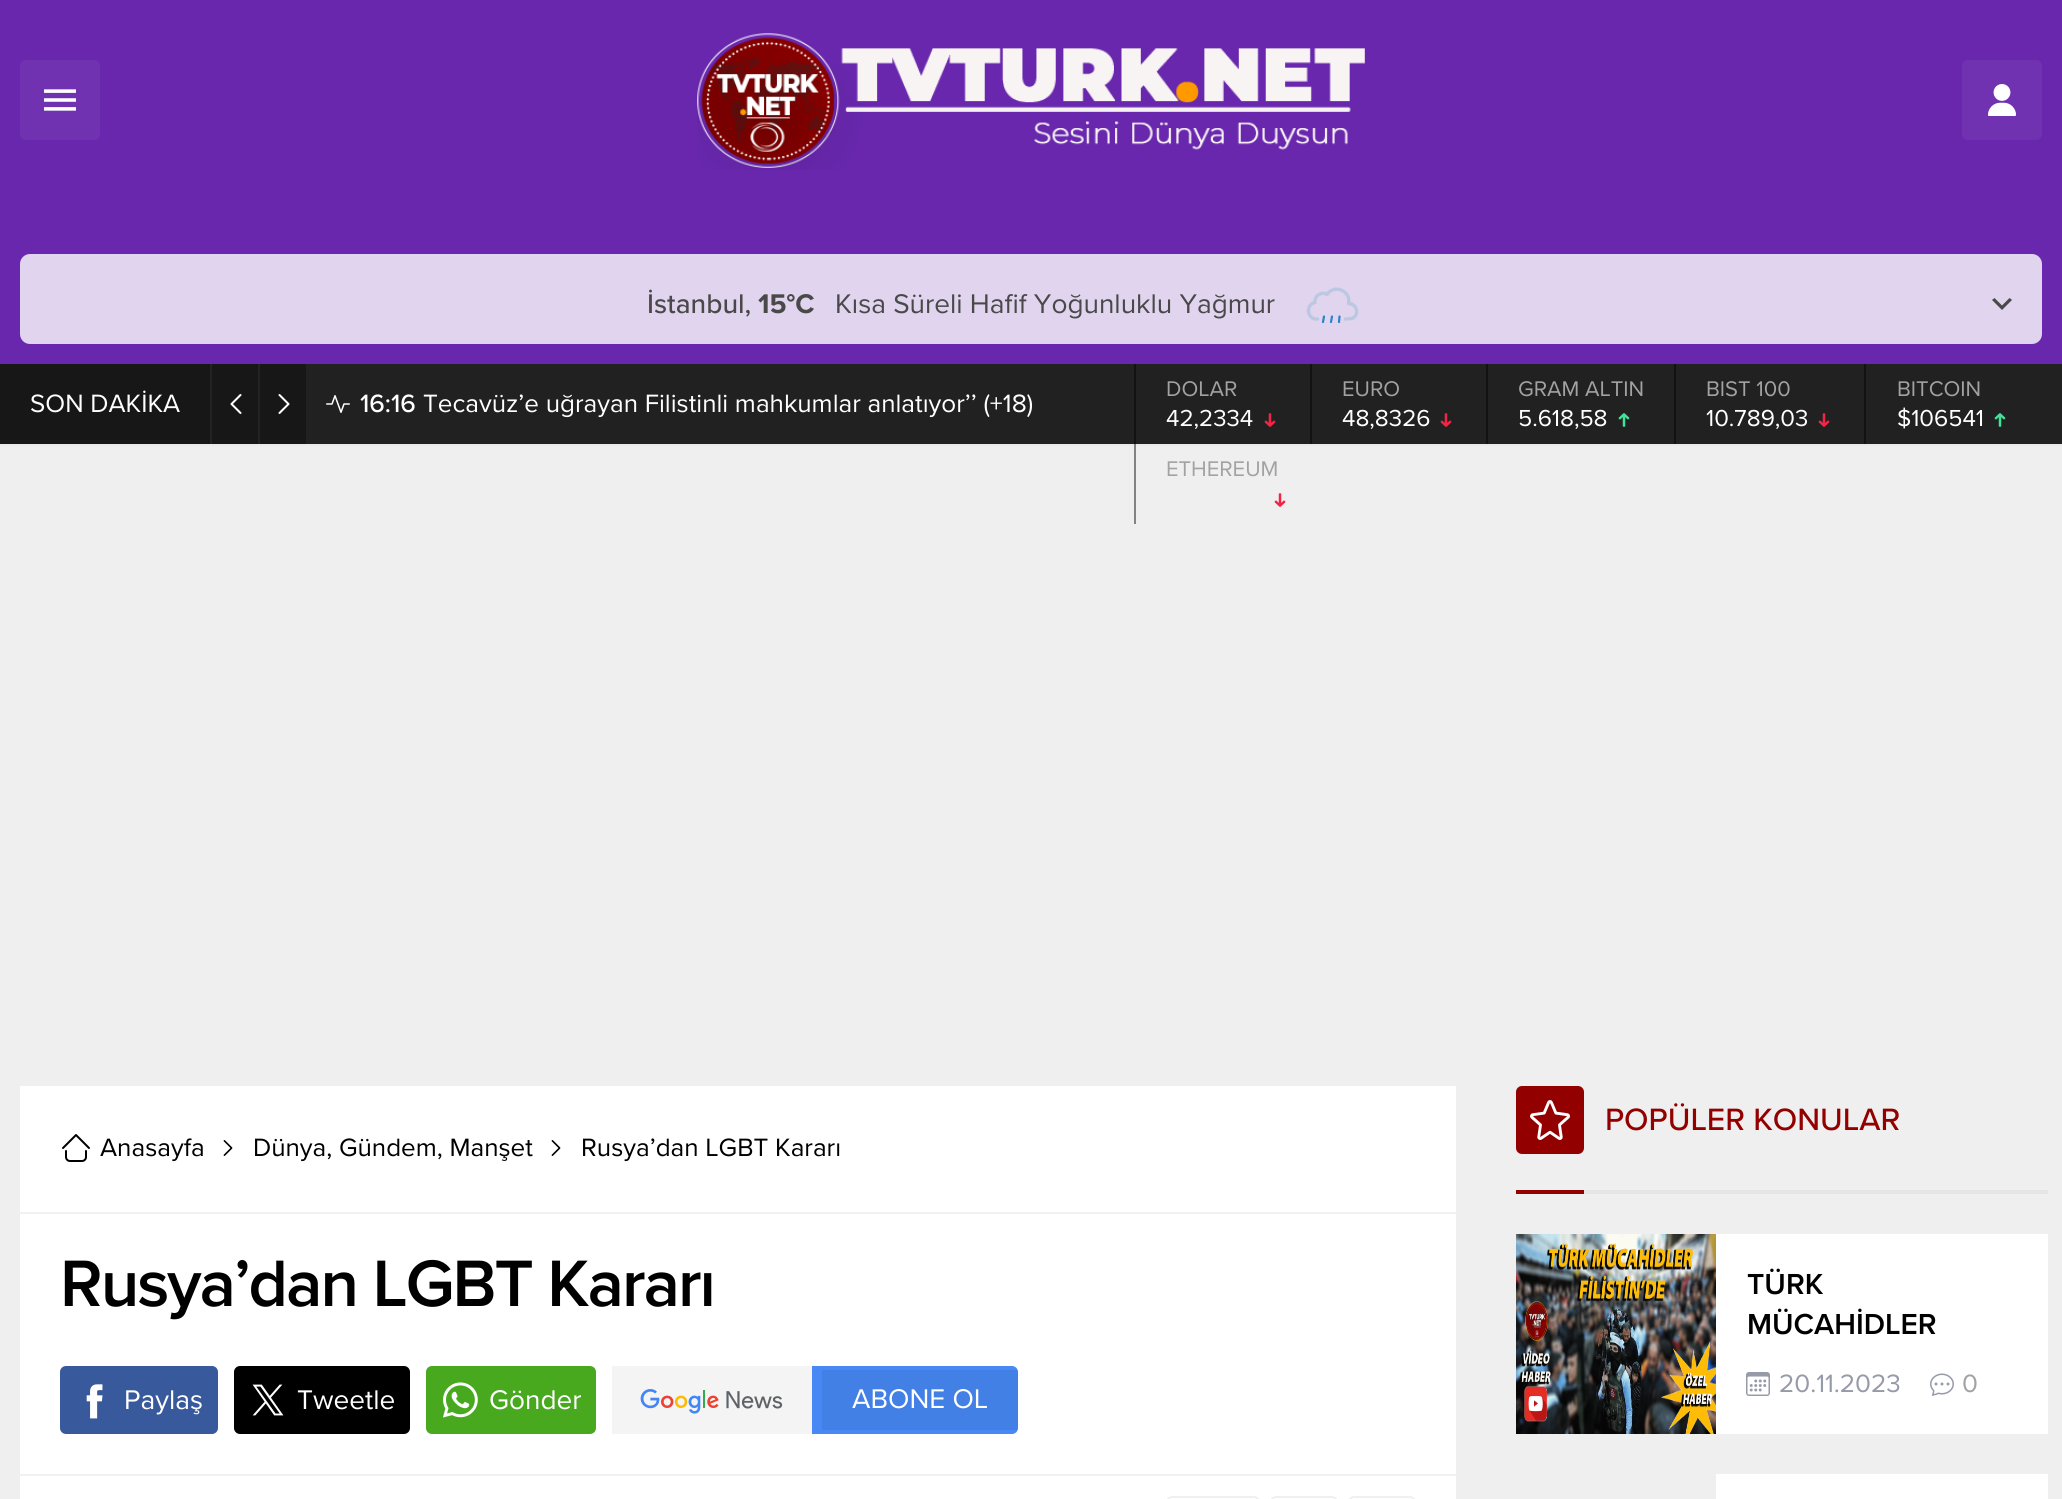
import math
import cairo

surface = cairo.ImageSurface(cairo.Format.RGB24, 2062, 1499)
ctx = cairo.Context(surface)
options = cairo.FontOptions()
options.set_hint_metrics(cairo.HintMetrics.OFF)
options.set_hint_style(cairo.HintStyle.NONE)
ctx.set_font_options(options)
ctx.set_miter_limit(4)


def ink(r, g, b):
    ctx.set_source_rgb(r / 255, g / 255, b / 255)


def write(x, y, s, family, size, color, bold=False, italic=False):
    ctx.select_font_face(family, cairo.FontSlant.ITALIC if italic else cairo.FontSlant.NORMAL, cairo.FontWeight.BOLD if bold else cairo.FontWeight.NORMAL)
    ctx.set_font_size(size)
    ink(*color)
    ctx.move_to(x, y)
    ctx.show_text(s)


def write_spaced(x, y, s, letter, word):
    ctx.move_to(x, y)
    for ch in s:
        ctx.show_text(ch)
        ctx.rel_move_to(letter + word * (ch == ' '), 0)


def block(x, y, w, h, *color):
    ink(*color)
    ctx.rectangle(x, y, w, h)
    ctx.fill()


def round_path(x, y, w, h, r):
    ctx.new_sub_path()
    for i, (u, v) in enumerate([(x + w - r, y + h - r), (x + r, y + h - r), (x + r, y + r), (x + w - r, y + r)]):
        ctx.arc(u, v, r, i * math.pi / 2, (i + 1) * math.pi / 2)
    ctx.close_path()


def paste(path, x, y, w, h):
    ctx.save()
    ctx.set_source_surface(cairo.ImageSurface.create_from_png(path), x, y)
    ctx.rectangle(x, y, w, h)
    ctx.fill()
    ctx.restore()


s1 = dict(family="Proxima Nova Medium", size=28, color=(73, 73, 73))
s2 = dict(family="Proxima Nova", size=28, color=(73, 73, 73), bold=True)
s3 = dict(family="Proxima Nova", size=28, color=(73, 73, 73))
s4 = dict(family="Proxima Nova", size=26, color=(255, 255, 255))
s5 = dict(family="Proxima Nova Medium", size=26, color=(255, 255, 255))
s6 = dict(family="Proxima Nova", size=22, color=(162, 162, 162))
s7 = dict(family="Proxima Nova", size=24, color=(255, 255, 255))
s8 = dict(family="Proxima Nova", size=26, color=(0, 0, 0))
s9 = dict(family="Proxima Nova", size=28, color=(255, 255, 255))
s10 = dict(family="Proxima Nova Medium", size=32, color=(147, 0, 0))
s11 = dict(family="Proxima Nova SemiBold", size=30, color=(0, 0, 0))
s12 = dict(family="Proxima Nova", size=26, color=(150, 154, 169))
s13 = dict(family="Proxima Nova", size=26, color=(162, 162, 162))

ink(239, 239, 239)
ctx.paint()
block(1134, 444, 2, 80, 131, 131, 131)
block(0, 444, 2062, 2, 234, 234, 234)
block(1134, 444, 2, 2, 129, 129, 129)
block(0, 0, 2062, 364, 104, 39, 173)
ink(112, 50, 177)
round_path(20, 60, 80, 80, 6)
ctx.fill()
paste("pic1.png", 44, 89, 32, 22)
paste("pic2.png", 697, 33, 668, 137)
round_path(1962, 60, 80, 80, 6)
ctx.fill()
paste("pic3.png", 1988, 84, 28, 32)
ink(225, 212, 239)
round_path(20, 254, 2022, 90, 10)
ctx.fill()
write(647, 313, "İstanbul,", **s1)
write(758, 313, "15°C", **s2)
write(835, 313, "Kısa Süreli Hafif Yoğunluklu Yağmur", **s3)
ctx.new_path()
ctx.move_to(1345.5, 319)
ctx.line_to(1352, 318.5)
ctx.curve_to(1360, 315, 1357, 303.5, 1348.5, 303.5)
ctx.curve_to(1351.5, 291, 1334, 283.5, 1327, 294.5)
ctx.curve_to(1321.5, 291, 1314, 296, 1315, 302.5)
ctx.curve_to(1305, 304.5, 1307, 320, 1317.5, 319)
ink(188, 200, 225)
ctx.set_line_width(3.4)
ctx.set_line_cap(cairo.LineCap.ROUND)
ctx.set_line_join(cairo.LineJoin.ROUND)
ctx.stroke()
ctx.new_path()
ctx.move_to(1324, 316.5)
ctx.line_to(1323, 322)
ctx.move_to(1332, 316.5)
ctx.line_to(1331, 322)
ctx.move_to(1339.5, 316.5)
ctx.line_to(1339, 322)
ink(40, 133, 199)
ctx.set_line_width(2.2)
ctx.set_line_join(cairo.LineJoin.MITER)
ctx.stroke()
ink(73, 73, 73)
ctx.new_path()
ctx.move_to(2009.5, 298)
ctx.line_to(2002, 305.5)
ctx.line_to(1994.5, 298)
ctx.line_to(1992, 300)
ctx.line_to(2002, 310)
ctx.line_to(2012, 300)
ctx.close_path()
ctx.fill()
block(306, 364, 1756, 80, 33, 33, 33)
block(0, 364, 306, 80, 23, 23, 23)
write(30, 412, "SON DAKİKA", **s4)
block(210, 364, 2, 80, 35, 35, 35)
paste("pic4.png", 230, 394, 12, 20)
block(258, 364, 2, 80, 35, 35, 35)
paste("pic5.png", 278, 394, 12, 20)
paste("pic6.png", 326, 395, 24, 18)
write(360, 412, "16:16", **s5)
write(423, 412, "Tecavüz’e uğrayan Filistinli mahkumlar anlatıyor’’ (+18)", **s4)
block(1134, 364, 2, 80, 18, 18, 18)
write(1166, 396, "DOLAR", **s6)
write(1166, 426, "42,2334", **s7)
paste("pic7.png", 1264, 413, 12, 14)
block(1310, 364, 2, 80, 18, 18, 18)
write(1342, 396, "EURO", **s6)
write(1342, 426, "48,8326", **s7)
paste("pic7.png", 1440, 413, 12, 14)
block(1486, 364, 2, 80, 18, 18, 18)
write(1518, 396, "GRAM ALTIN", **s6)
write(1518, 426, "5.618,58", **s7)
paste("pic8.png", 1618, 413, 12, 14)
block(1674, 364, 2, 80, 18, 18, 18)
write(1706, 396, "BIST 100", **s6)
write(1706, 426, "10.789,03", **s7)
paste("pic7.png", 1818, 413, 12, 14)
block(1864, 364, 2, 80, 18, 18, 18)
write(1897, 396, "BITCOIN", **s6)
write(1897, 426, "$106541", **s7)
paste("pic8.png", 1994, 413, 12, 14)
write(1166, 476, "ETHEREUM", **s6)
paste("pic9.png", 1274, 493, 12, 14)
block(20, 1086, 1436, 413, 255, 255, 255)
block(20, 1212, 1436, 2, 241, 241, 241)
paste("pic10.png", 62, 1134, 28, 28)
write(100, 1156, "Anasayfa", **s8)
paste("pic11.png", 223, 1140, 10, 16)
write(253, 1156, "Dünya, Gündem, Manşet", **s8)
paste("pic11.png", 551, 1140, 10, 16)
write(581, 1156, "Rusya’dan LGBT Kararı", **s8)
ctx.select_font_face("Proxima Nova SemiBold")
ctx.set_font_size(68)
write_spaced(60, 1306, "Rusya’dan LGBT Kararı", -2, 0)
ink(56, 89, 155)
round_path(60, 1366, 158, 68, 6)
ctx.fill()
paste("pic12.png", 86, 1384, 17, 35)
write(124, 1409, "Paylaş", **s9)
ink(0, 0, 0)
round_path(234, 1366, 176, 68, 6)
ctx.fill()
paste("pic13.png", 252, 1384, 32, 32)
write(297, 1409, "Tweetle", **s9)
ink(72, 169, 31)
round_path(426, 1366, 170, 68, 6)
ctx.fill()
paste("pic14.png", 443, 1382, 35, 36)
write(489, 1409, "Gönder", **s9)
ink(71, 136, 244)
round_path(612, 1366, 406, 68, 6)
ctx.fill()
block(612, 1366, 200, 68, 244, 244, 244)
paste("pic15.png", 640, 1389, 143, 25)
ctx.set_source_rgba(0, 0, 0, 0.06)
ctx.rectangle(822, 1370, 196, 60)
ctx.fill()
write(852, 1408, "ABONE OL", **s9)
block(20, 1474, 1436, 2, 241, 241, 241)
round_path(1167, 1497, 92, 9, 5)
ink(240, 240, 240)
ctx.set_line_width(2)
ctx.set_line_cap(cairo.LineCap.BUTT)
ctx.stroke()
round_path(1271, 1497, 66, 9, 5)
ctx.stroke()
round_path(1349, 1497, 66, 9, 5)
ctx.stroke()
block(1584, 1190, 464, 4, 229, 229, 229)
ink(147, 0, 0)
round_path(1516, 1086, 68, 68, 6)
ctx.fill()
paste("pic16.png", 1530, 1100, 40, 40)
write(1605, 1130, "POPÜLER KONULAR", **s10)
block(1516, 1190, 68, 4, 147, 0, 0)
block(1716, 1234, 332, 200, 255, 255, 255)
paste("pic17.png", 1516, 1234, 200, 200)
write(1747, 1294, "TÜRK", **s11)
write(1747, 1334, "MÜCAHİDLER", **s11)
paste("pic18.png", 1746, 1372, 24, 24)
write(1779, 1392, "20.11.2023", **s12)
paste("pic19.png", 1930, 1373, 24, 23)
write(1962, 1392, "0", **s13)
block(1716, 1474, 332, 25, 255, 255, 255)
surface.write_to_png("screenshot.png")
